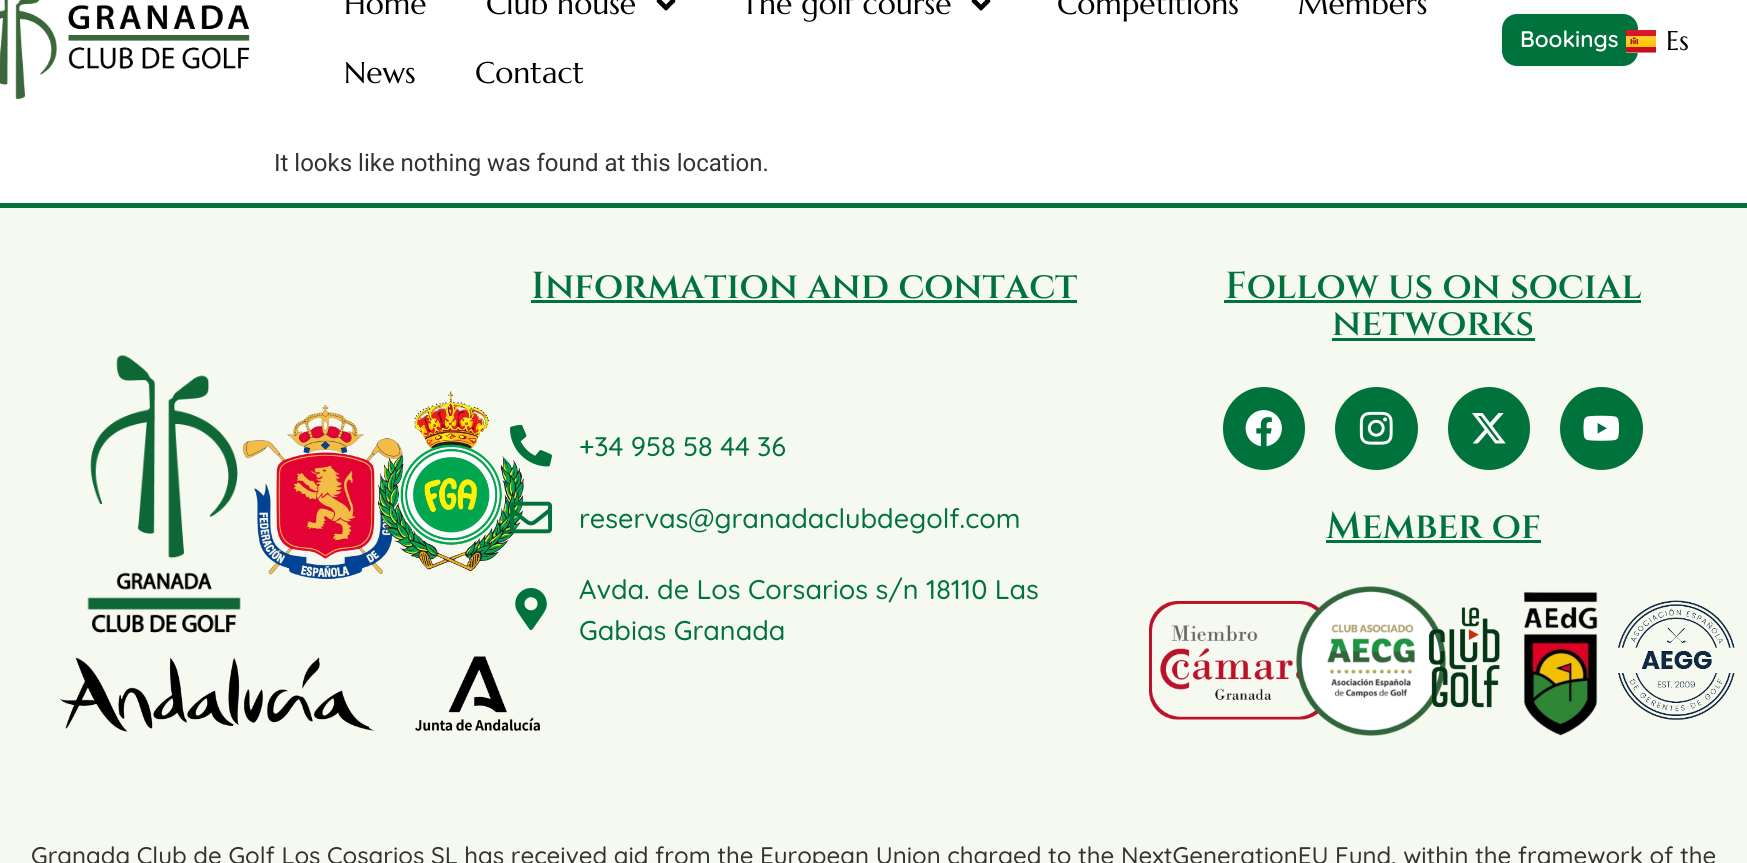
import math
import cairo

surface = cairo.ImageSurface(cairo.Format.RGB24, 1747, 863)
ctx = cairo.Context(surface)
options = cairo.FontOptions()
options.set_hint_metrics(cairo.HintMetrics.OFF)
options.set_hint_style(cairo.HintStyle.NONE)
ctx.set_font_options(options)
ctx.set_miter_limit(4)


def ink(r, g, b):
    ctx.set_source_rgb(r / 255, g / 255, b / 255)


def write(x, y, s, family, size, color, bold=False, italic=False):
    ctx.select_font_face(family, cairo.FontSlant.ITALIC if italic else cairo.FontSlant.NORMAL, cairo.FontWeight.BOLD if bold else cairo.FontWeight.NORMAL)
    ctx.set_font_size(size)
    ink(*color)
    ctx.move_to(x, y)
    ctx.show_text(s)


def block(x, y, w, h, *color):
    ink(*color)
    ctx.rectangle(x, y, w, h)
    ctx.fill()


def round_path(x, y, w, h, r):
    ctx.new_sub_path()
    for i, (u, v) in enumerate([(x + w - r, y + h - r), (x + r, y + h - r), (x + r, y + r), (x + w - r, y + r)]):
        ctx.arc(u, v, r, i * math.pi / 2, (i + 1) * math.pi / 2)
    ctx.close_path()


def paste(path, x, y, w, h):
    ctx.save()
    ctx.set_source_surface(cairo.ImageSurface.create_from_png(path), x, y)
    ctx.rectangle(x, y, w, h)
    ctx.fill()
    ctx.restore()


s1 = dict(family="Marcellus", size=30, color=(0, 0, 0))
s2 = dict(family="Quicksand SemiBold", size=22.5, color=(255, 255, 255))
s3 = dict(family="Marcellus", size=27, color=(0, 0, 0))
s4 = dict(family="Roboto", size=24, color=(51, 51, 51))
s5 = dict(family="Cinzel SemiBold", size=37.5, color=(0, 115, 61))
s6 = dict(family="Quicksand Medium", size=27, color=(0, 115, 61))
s7 = dict(family="Quicksand Medium", size=24, color=(51, 51, 51))

ink(255, 255, 255)
ctx.paint()
paste("pic1.png", 0, 0, 250, 100)
write(344, 14, "Home", **s1)
write(486, 14, "Club house", **s1)
paste("pic2.png", 656, 0, 20, 11)
write(741, 14, "The golf course", **s1)
paste("pic2.png", 971, 0, 20, 11)
write(1057, 14, "Competitions", **s1)
write(1298, 14, "Members", **s1)
write(344, 83, "News", **s1)
write(475, 83, "Contact", **s1)
ink(0, 115, 61)
round_path(1502, 14, 136, 52, 15)
ctx.fill()
write(1520, 47, "Bookings", **s2)
paste("pic3.png", 1626, 30, 30, 23)
write(1666, 50, "Es", **s3)
write(274, 171, "It looks like nothing was found at this location.", **s4)
block(0, 208, 1747, 655, 246, 249, 239)
block(0, 203, 1747, 5, 0, 115, 61)
paste("pic4.png", 87, 355, 154, 278)
paste("pic5.png", 242, 405, 160, 175)
paste("pic6.png", 377, 391, 147, 181)
paste("pic7.png", 60, 656, 480, 76)
write(531, 298, "Information and contact", **s5)
block(531, 300, 546, 3, 0, 115, 61)
paste("pic8.png", 510, 425, 42, 42)
write(579, 456, "+34 958 58 44 36", **s6)
paste("pic9.png", 510, 501, 42, 33)
write(579, 528, "reservas@granadaclubdegolf.com", **s6)
paste("pic10.png", 515, 588, 32, 42)
write(579, 599, "Avda. de Los Corsarios s/n 18110 Las", **s6)
write(579, 640, "Gabias Granada", **s6)
write(1225, 298, "Follow us on social", **s5)
block(1224, 300, 417, 3, 0, 115, 61)
write(1332, 335, "networks", **s5)
block(1332, 338, 203, 3, 0, 115, 61)
round_path(1223, 387, 82, 83, 41)
ctx.fill()
paste("pic11.png", 1245, 410, 37, 37)
ctx.arc(1376.5, 428.5, 41.5, 0, 2 * math.pi)
ctx.fill()
paste("pic12.png", 1359, 411, 34, 34)
round_path(1448, 387, 82, 83, 41)
ctx.fill()
paste("pic13.png", 1472, 413, 34, 31)
ctx.arc(1601.5, 428.5, 41.5, 0, 2 * math.pi)
ctx.fill()
paste("pic14.png", 1583, 415, 36, 26)
write(1326, 538, "Member of", **s5)
block(1326, 540, 215, 3, 0, 115, 61)
paste("pic15.png", 1149, 601, 171, 119)
paste("pic16.png", 1296, 586, 150, 150)
paste("pic17.png", 1428, 607, 72, 101)
paste("pic18.png", 1522, 591, 76, 145)
paste("pic19.png", 1618, 600, 117, 120)
write(31, 864, "Granada Club de Golf Los Cosarios SL has received aid from the European Union charged to the NextGenerationEU Fund, within the framework of the", **s7)
surface.write_to_png("screenshot.png")
